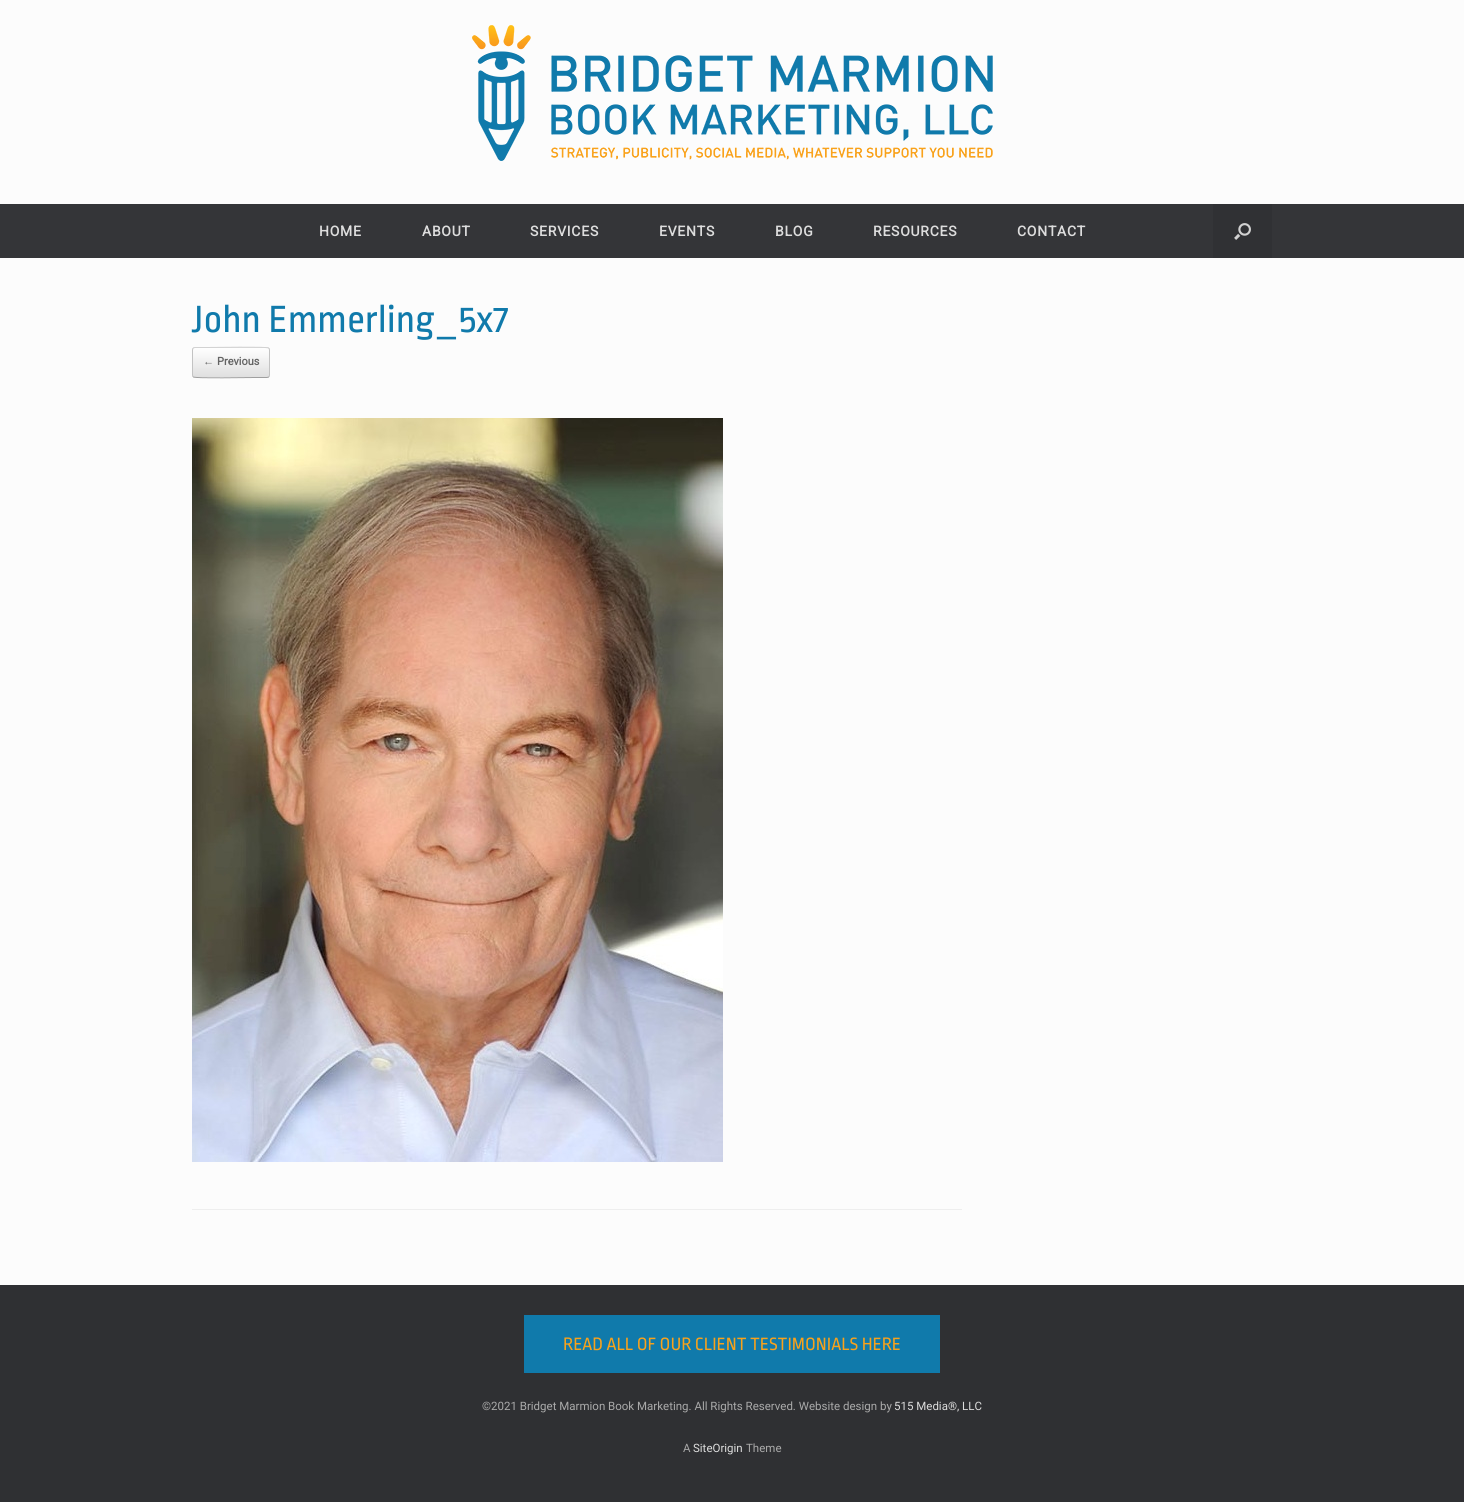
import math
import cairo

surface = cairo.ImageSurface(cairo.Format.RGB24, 1464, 1502)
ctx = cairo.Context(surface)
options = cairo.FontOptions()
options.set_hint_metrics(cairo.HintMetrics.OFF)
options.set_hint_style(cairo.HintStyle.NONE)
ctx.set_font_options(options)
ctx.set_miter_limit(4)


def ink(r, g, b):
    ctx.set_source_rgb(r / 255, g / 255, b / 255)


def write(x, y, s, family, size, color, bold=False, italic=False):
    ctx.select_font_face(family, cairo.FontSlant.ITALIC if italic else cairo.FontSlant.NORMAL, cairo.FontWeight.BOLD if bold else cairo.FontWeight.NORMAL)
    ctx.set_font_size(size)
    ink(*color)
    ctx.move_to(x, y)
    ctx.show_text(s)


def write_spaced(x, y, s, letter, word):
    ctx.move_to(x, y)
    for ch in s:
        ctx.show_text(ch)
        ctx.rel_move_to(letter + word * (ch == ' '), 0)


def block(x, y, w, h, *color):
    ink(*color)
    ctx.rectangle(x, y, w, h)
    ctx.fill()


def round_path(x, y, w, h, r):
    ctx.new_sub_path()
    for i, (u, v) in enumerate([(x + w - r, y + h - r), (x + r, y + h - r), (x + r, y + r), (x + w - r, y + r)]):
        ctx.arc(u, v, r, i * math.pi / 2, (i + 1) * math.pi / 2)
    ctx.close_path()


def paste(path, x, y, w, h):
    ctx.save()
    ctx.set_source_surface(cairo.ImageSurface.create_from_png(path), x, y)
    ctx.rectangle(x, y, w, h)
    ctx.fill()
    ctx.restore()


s1 = dict(family="Ropa Sans", size=40, color=(16, 122, 171))
s2 = dict(family="Liberation Serif", size=11, color=(100, 100, 100), bold=True)
s3 = dict(family="Roboto", size=11, color=(100, 100, 100), bold=True)
s4 = dict(family="Ropa Sans", size=18.8, color=(249, 162, 27))
s5 = dict(family="Roboto", size=11.5, color=(170, 170, 170))
s6 = dict(family="Roboto", size=11.5, color=(221, 221, 221))

ink(47, 48, 51)
ctx.paint()
block(0, 0, 1464, 204, 252, 252, 252)
paste("pic1.png", 472, 25, 521, 136)
block(0, 204, 1464, 54, 52, 53, 56)
ctx.select_font_face("Roboto", cairo.FontSlant.NORMAL, cairo.FontWeight.BOLD)
ctx.set_font_size(14)
ink(221, 221, 221)
write_spaced(319, 236, "HOME", 0.75, 0)
write_spaced(422, 236, "ABOUT", 0.75, 0)
write_spaced(530, 236, "SERVICES", 0.75, 0)
write_spaced(659, 236, "EVENTS", 0.75, 0)
write_spaced(775, 236, "BLOG", 0.75, 0)
write_spaced(873, 236, "RESOURCES", 0.75, 0)
write_spaced(1017, 236, "CONTACT", 0.75, 0)
block(1213, 204, 59, 54, 48, 49, 52)
paste("pic2.png", 1234, 223, 17, 17)
block(0, 258, 1464, 1027, 252, 252, 252)
block(192, 1209, 770, 1, 238, 238, 238)
write(192, 332, "John Emmerling_5x7", **s1)
ctx.save()
round_path(192, 347, 78, 31, 3)
ctx.clip()
gradient = cairo.LinearGradient(193, 348, 193, 319)
gradient.add_color_stop_rgba(0, 0.875, 0.875, 0.875, 1)
gradient.add_color_stop_rgba(1, 1, 1, 1, 1)
ctx.set_source(gradient)
ctx.rectangle(192, 347, 78, 1)
ctx.fill()
gradient = cairo.LinearGradient(193, 377, 193, 348)
gradient.add_color_stop_rgba(0, 0.875, 0.875, 0.875, 1)
gradient.add_color_stop_rgba(1, 1, 1, 1, 1)
ctx.set_source(gradient)
ctx.rectangle(192, 348, 78, 29)
ctx.fill()
ctx.restore()
ctx.new_path()
ctx.move_to(193, 348)
ctx.line_to(195, 347.5)
ctx.line_to(207, 347.5)
ctx.curve_to(214, 347.5, 266.5, 346.5, 268.5, 348)
ctx.line_to(269, 348)
ink(210, 210, 210)
ctx.set_line_width(1)
ctx.stroke()
ctx.new_path()
ctx.move_to(269, 348)
ctx.curve_to(269, 348.5, 269.5, 349.5, 269.5, 350)
ctx.line_to(269.5, 375)
ctx.curve_to(269.5, 375.5, 269, 376.5, 269, 377)
ink(195, 195, 195)
ctx.stroke()
ctx.new_path()
ctx.move_to(269, 377)
ctx.line_to(267, 377.5)
ctx.line_to(255, 377.5)
ctx.curve_to(248, 377.5, 195.5, 378.5, 193.5, 377)
ctx.line_to(193, 377)
ink(159, 159, 159)
ctx.stroke()
ctx.new_path()
ctx.move_to(193, 377)
ctx.curve_to(193, 376.5, 192.5, 375.5, 192.5, 375)
ctx.line_to(192.5, 350)
ctx.curve_to(192.5, 349.5, 193, 348.5, 193, 348)
ink(195, 195, 195)
ctx.stroke()
write(203, 365, "←", **s2)
write(217, 365, "Previous", **s3)
paste("pic3.png", 192, 418, 531, 744)
block(524, 1315, 416, 58, 16, 122, 171)
write(563, 1350, "READ ALL OF OUR CLIENT TESTIMONIALS HERE", **s4)
write(482, 1410, "©2021 Bridget Marmion Book Marketing. All Rights Reserved. Website design by", **s5)
write(894, 1410, "515 Media®, LLC", **s6)
write(683, 1452, "A", **s5)
write(693, 1452, "SiteOrigin", **s6)
write(746, 1452, "Theme", **s5)
surface.write_to_png("screenshot.png")
